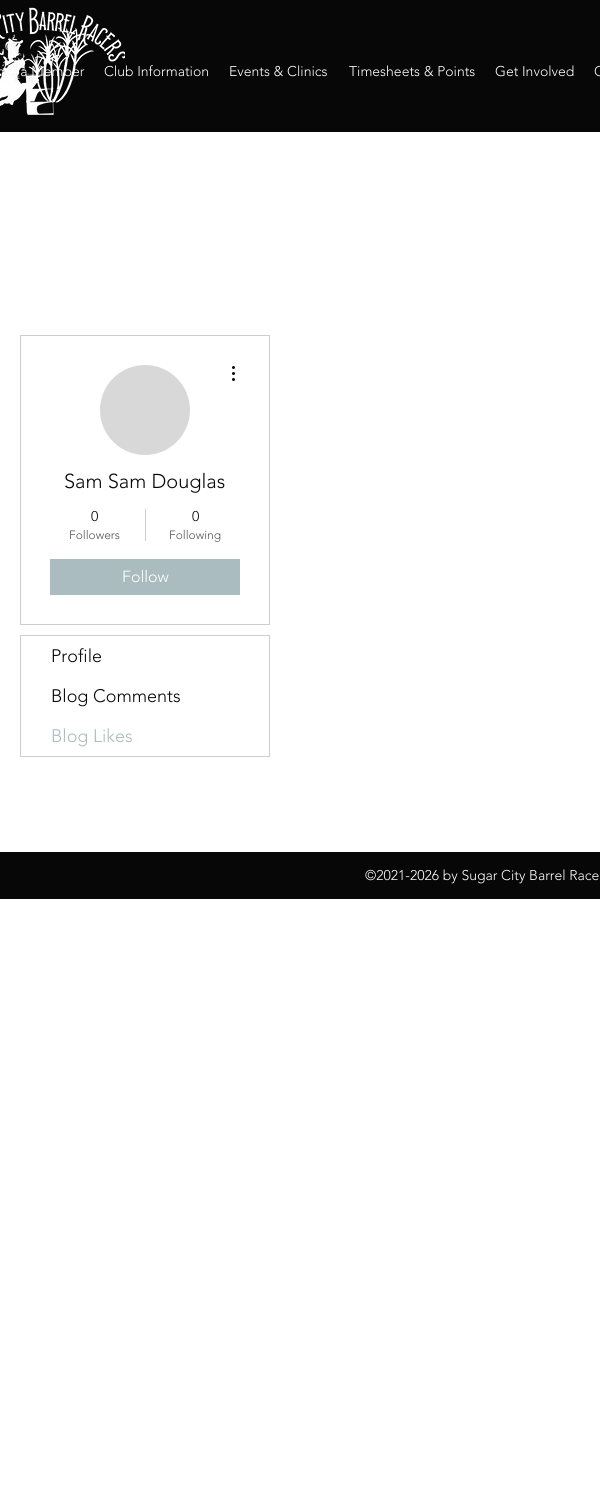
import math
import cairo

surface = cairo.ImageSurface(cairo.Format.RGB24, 600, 1498)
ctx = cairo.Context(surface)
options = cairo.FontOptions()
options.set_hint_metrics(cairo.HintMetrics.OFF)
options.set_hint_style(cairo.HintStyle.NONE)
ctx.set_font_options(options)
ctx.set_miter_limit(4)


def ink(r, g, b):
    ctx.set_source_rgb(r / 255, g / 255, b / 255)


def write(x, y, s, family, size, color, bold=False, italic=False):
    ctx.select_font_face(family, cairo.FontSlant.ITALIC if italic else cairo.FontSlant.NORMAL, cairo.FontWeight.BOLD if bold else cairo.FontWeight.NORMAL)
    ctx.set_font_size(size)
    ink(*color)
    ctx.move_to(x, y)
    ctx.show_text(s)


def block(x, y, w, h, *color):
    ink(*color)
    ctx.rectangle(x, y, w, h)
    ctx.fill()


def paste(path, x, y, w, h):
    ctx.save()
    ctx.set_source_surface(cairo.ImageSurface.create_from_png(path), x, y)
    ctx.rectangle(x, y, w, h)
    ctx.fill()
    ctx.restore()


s1 = dict(family="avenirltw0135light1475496 Light", size=14, color=(255, 255, 255))
s2 = dict(family="avenirltw0135light1475496 Light", size=20, color=(7, 7, 7))
s3 = dict(family="avenirltw0135light1475496 Light", size=14, color=(7, 7, 7))
s4 = dict(family="avenirltw0135light1475496 Light", size=12, color=(81, 81, 81))
s5 = dict(family="avenirltw0135light1475496 Light", size=16, color=(255, 255, 255))
s6 = dict(family="avenirltw0135light1475496 Light", size=18, color=(7, 7, 7))
s7 = dict(family="avenirltw0135light1475496 Light", size=18, color=(170, 188, 191))

ink(255, 255, 255)
ctx.paint()
block(0, 0, 600, 132, 7, 7, 7)
paste("pic1.png", 0, 7, 125, 108)
write(-3, 76, "me a Member", **s1)
write(104, 76, "Club Information", **s1)
write(229, 76, "Events & Clinics", **s1)
write(349, 76, "Timesheets & Points", **s1)
write(495, 76, "Get Involved", **s1)
write(594, 76, "C", **s1)
ctx.rectangle(20.5, 335.5, 249, 289)
ink(205, 205, 205)
ctx.set_line_width(1)
ctx.stroke()
ink(216, 216, 216)
ctx.arc(145, 410, 45, 0, 2 * math.pi)
ctx.fill()
paste("pic2.png", 232, 366, 3, 15)
write(64, 488, "Sam Sam Douglas", **s2)
write(91, 521, "0", **s3)
write(69, 539, "Followers", **s4)
block(145, 509, 1, 32, 205, 205, 205)
write(192, 521, "0", **s3)
write(169, 539, "Following", **s4)
block(50, 559, 190, 36, 170, 188, 191)
write(122, 582, "Follow", **s5)
ctx.rectangle(20.5, 635.5, 249, 121)
ink(205, 205, 205)
ctx.stroke()
write(51, 662, "Profile", **s6)
write(51, 702, "Blog Comments", **s6)
write(51, 742, "Blog Likes", **s7)
block(0, 852, 600, 47, 7, 7, 7)
write(365, 880, "©2021-2026 by Sugar City Barrel Race", **s1)
surface.write_to_png("screenshot.png")
